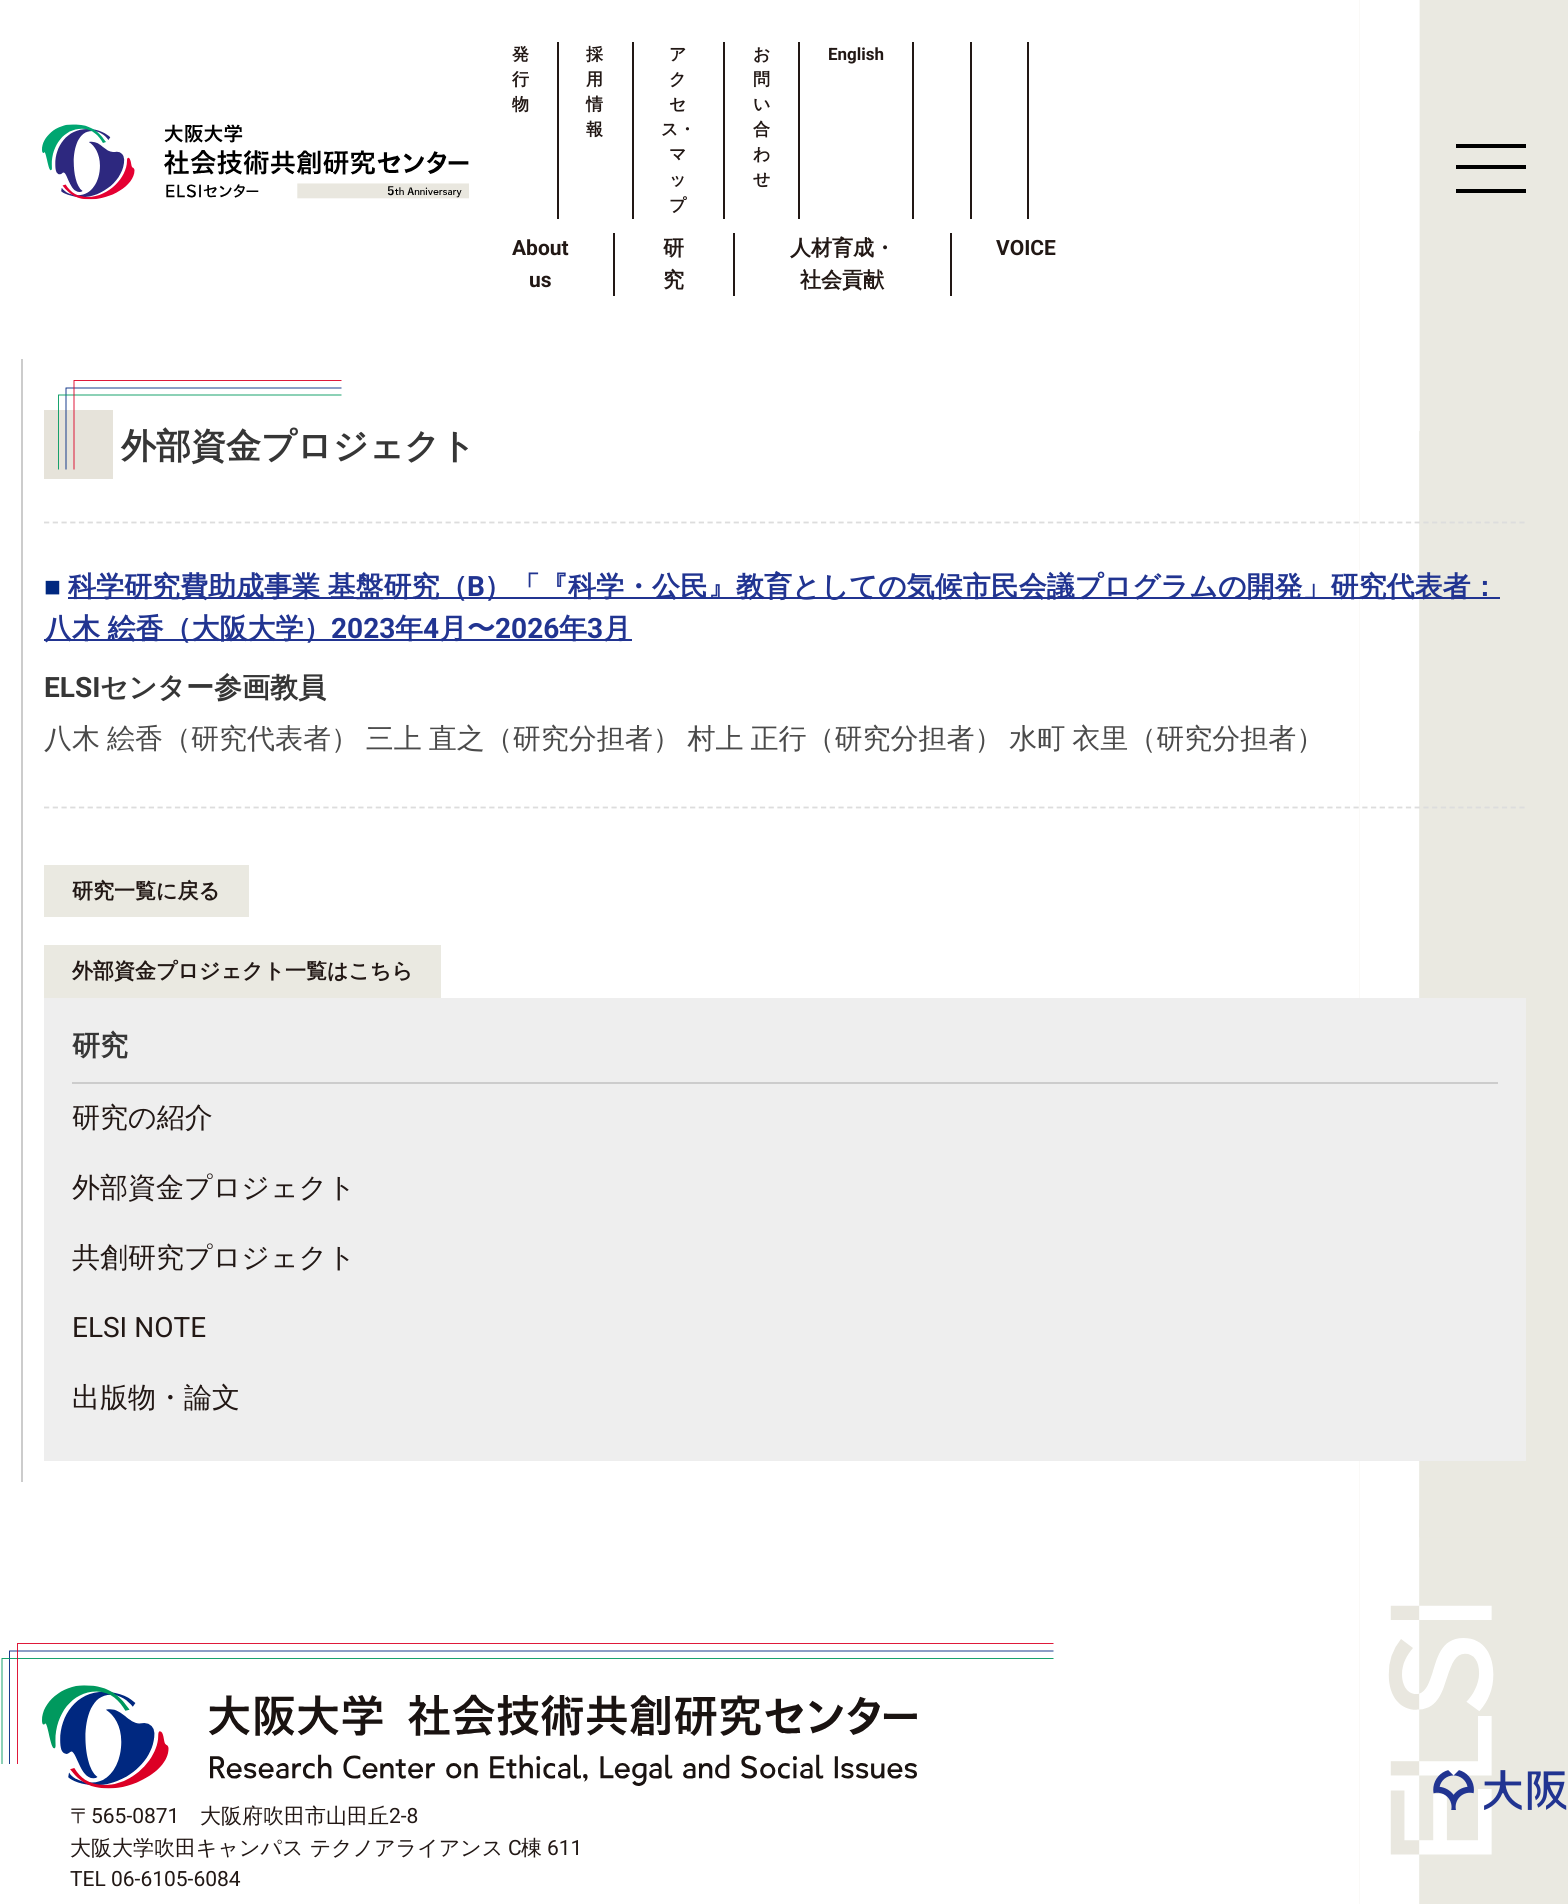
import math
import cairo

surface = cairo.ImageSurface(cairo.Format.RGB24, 1568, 1904)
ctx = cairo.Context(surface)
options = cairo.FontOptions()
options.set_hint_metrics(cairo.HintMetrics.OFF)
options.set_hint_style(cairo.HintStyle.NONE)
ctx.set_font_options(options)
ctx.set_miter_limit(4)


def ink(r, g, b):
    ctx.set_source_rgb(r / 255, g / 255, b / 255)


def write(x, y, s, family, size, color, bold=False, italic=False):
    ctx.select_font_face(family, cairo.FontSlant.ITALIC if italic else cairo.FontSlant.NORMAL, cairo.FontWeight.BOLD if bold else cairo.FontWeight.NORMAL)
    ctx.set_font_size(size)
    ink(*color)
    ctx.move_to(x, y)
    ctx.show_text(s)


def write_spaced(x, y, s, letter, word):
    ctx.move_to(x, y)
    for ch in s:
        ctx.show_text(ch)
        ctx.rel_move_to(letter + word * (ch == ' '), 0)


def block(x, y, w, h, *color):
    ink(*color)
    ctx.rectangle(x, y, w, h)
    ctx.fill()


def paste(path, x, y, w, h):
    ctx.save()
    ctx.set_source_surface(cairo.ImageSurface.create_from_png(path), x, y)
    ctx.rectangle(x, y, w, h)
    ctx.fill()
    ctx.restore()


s1 = dict(family="WenQuanYi Zen Hei", size=17, color=(34, 24, 21), bold=True)
s2 = dict(family="Roboto", size=17, color=(34, 24, 21), bold=True)
s3 = dict(family="Roboto", size=21, color=(34, 24, 21), bold=True)
s4 = dict(family="WenQuanYi Zen Hei", size=21, color=(34, 24, 21), bold=True)
s5 = dict(family="WenQuanYi Zen Hei", size=35, color=(54, 54, 54), bold=True)
s6 = dict(family="Liberation Sans", size=28, color=(0, 40, 128), bold=True)
s7 = dict(family="Roboto", size=28, color=(33, 52, 145), bold=True)
s8 = dict(family="WenQuanYi Zen Hei", size=28, color=(33, 52, 145), bold=True)
s9 = dict(family="Roboto", size=28, color=(54, 54, 54), bold=True)
s10 = dict(family="WenQuanYi Zen Hei", size=28, color=(54, 54, 54), bold=True)
s11 = dict(family="WenQuanYi Zen Hei Medium", size=28, color=(34, 24, 21))
s12 = dict(family="Roboto", size=28, color=(34, 24, 21))
s13 = dict(family="WenQuanYi Zen Hei Medium", size=21, color=(34, 24, 21))
s14 = dict(family="Roboto", size=21, color=(34, 24, 21))

ink(255, 255, 255)
ctx.paint()
paste("pic1.png", 1359, 0, 209, 1904)
paste("pic2.png", 42, 124, 427, 76)
block(557, 42, 2, 177, 34, 24, 21)
write(512, 60, "発", **s1)
write(512, 85, "行", **s1)
write(512, 110, "物", **s1)
block(632, 42, 2, 177, 34, 24, 21)
write(586, 60, "採", **s1)
write(586, 85, "用", **s1)
write(586, 110, "情", **s1)
write(586, 135, "報", **s1)
block(723, 42, 2, 177, 34, 24, 21)
write(669, 60, "ア", **s1)
write(669, 85, "ク", **s1)
write(669, 110, "セ", **s1)
write(661, 135, "ス・", **s1)
write(669, 160, "マ", **s1)
write(669, 185, "ッ", **s1)
write(669, 211, "プ", **s1)
block(798, 42, 2, 177, 34, 24, 21)
write(753, 60, "お", **s1)
write(753, 85, "問", **s1)
write(753, 110, "い", **s1)
write(753, 135, "合", **s1)
write(753, 160, "わ", **s1)
write(753, 185, "せ", **s1)
block(912, 42, 2, 177, 34, 24, 21)
write(828, 60, "English", **s2)
block(970, 42, 2, 177, 34, 24, 21)
block(1027, 42, 2, 177, 34, 24, 21)
block(613, 233, 2, 63, 34, 24, 21)
write(512, 255, "About", **s3)
write(529, 287, "us", **s3)
block(733, 233, 2, 63, 34, 24, 21)
write(663, 255, "研", **s4)
write(663, 287, "究", **s4)
block(950, 233, 2, 63, 34, 24, 21)
write(790, 255, "人材育成・", **s4)
write(800, 287, "社会貢献", **s4)
write(996, 255, "VOICE", **s3)
block(1456, 144, 70, 4, 0, 0, 0)
block(1456, 165, 70, 4, 0, 0, 0)
block(1456, 189, 70, 4, 0, 0, 0)
block(21, 359, 2, 1123, 204, 204, 204)
block(44, 410, 69, 69, 230, 227, 218)
ctx.new_path()
ctx.move_to(66, 469.5)
ctx.line_to(66, 388)
ctx.line_to(341.5, 388)
ink(0, 40, 128)
ctx.set_line_width(0.9)
ctx.stroke()
ctx.new_path()
ctx.move_to(341.5, 395)
ctx.line_to(58.5, 395)
ctx.line_to(58.5, 469.5)
ink(0, 153, 94)
ctx.stroke()
ctx.new_path()
ctx.move_to(341.5, 380.5)
ctx.line_to(74, 380.5)
ctx.line_to(74, 469.5)
ink(220, 0, 37)
ctx.stroke()
write(121, 458, "外部資金プロジェクト", **s5)
ctx.new_path()
ctx.move_to(44, 522.5)
ctx.line_to(1526, 522.5)
ink(221, 221, 221)
ctx.set_line_width(1.8)
ctx.set_dash([5.25, 3.48])
ctx.stroke()
write(44, 596, "■", **s6)
block(68, 597, 1432, 2, 33, 52, 145)
ctx.select_font_face("WenQuanYi Zen Hei", cairo.FontSlant.NORMAL, cairo.FontWeight.BOLD)
write_spaced(68, 596, "科学研究費助成事業 基盤研究（", 0, -1)
write(467, 596, "B", **s7)
write(484, 596, "）「『科学・公民』教育としての気候市民会議プログラムの開発」研究代表者：", **s8)
block(44, 639, 588, 2, 33, 52, 145)
write_spaced(44, 638, "八木 絵香（大阪大学）", 0, -1)
write(331, 638, "2023", **s7)
write(395, 638, "年", **s8)
write(423, 638, "4", **s7)
write(439, 638, "月〜", **s8)
write(495, 638, "2026", **s7)
write(559, 638, "年", **s8)
write(587, 638, "3", **s7)
write(603, 638, "月", **s8)
ctx.new_path()
ctx.move_to(44, 807.5)
ctx.line_to(1526, 807.5)
ink(221, 221, 221)
ctx.stroke()
write(44, 697, "ELSI", **s9)
write(100, 697, "センター参画教員", **s10)
ctx.select_font_face("WenQuanYi Zen Hei Medium")
ink(74, 74, 74)
write_spaced(44, 748, "八木 絵香（研究代表者） 三上 直之（研究分担者） 村上 正行（研究分担者） 水町 衣里（研究分担者）", 0, -1.5)
block(44, 865, 205, 52, 234, 233, 225)
write(72, 898, "研究一覧に戻る", **s4)
block(44, 945, 397, 53, 234, 233, 225)
write(72, 978, "外部資金プロジェクト一覧はこちら", **s4)
block(44, 998, 1482, 463, 238, 238, 238)
block(72, 1082, 1426, 2, 204, 204, 204)
write(72, 1055, "研究", **s10)
write(72, 1127, "研究の紹介", **s11)
write(72, 1197, "外部資金プロジェクト", **s11)
write(72, 1267, "共創研究プロジェクト", **s11)
write(72, 1337, "ELSI NOTE", **s12)
write(72, 1407, "出版物・論文", **s11)
ctx.new_path()
ctx.move_to(9.5, 1764)
ctx.line_to(9.5, 1651)
ctx.line_to(1053.5, 1651)
ink(0, 40, 128)
ctx.set_line_width(0.9)
ctx.set_dash([])
ctx.stroke()
ctx.new_path()
ctx.move_to(1053.5, 1658.5)
ctx.line_to(2, 1658.5)
ctx.line_to(2, 1764)
ink(0, 153, 94)
ctx.stroke()
ctx.new_path()
ctx.move_to(1053.5, 1643.5)
ctx.line_to(17.5, 1643.5)
ctx.line_to(17.5, 1764)
ink(220, 0, 37)
ctx.stroke()
paste("pic3.png", 1433, 1770, 134, 40)
paste("pic4.png", 42, 1685, 875, 104)
write(70, 1823, "〒", **s13)
write(91, 1823, "565-0871", **s14)
write(200, 1823, "大阪府吹田市山田丘", **s13)
write(389, 1823, "2-8", **s14)
write(70, 1855, "大阪大学吹田キャンパス テクノアライアンス", **s13)
write(508, 1855, "C", **s14)
write(521, 1855, "棟", **s13)
write(547, 1855, "611", **s14)
write(70, 1886, "TEL 06-6105-6084", **s14)
surface.write_to_png("screenshot.png")
